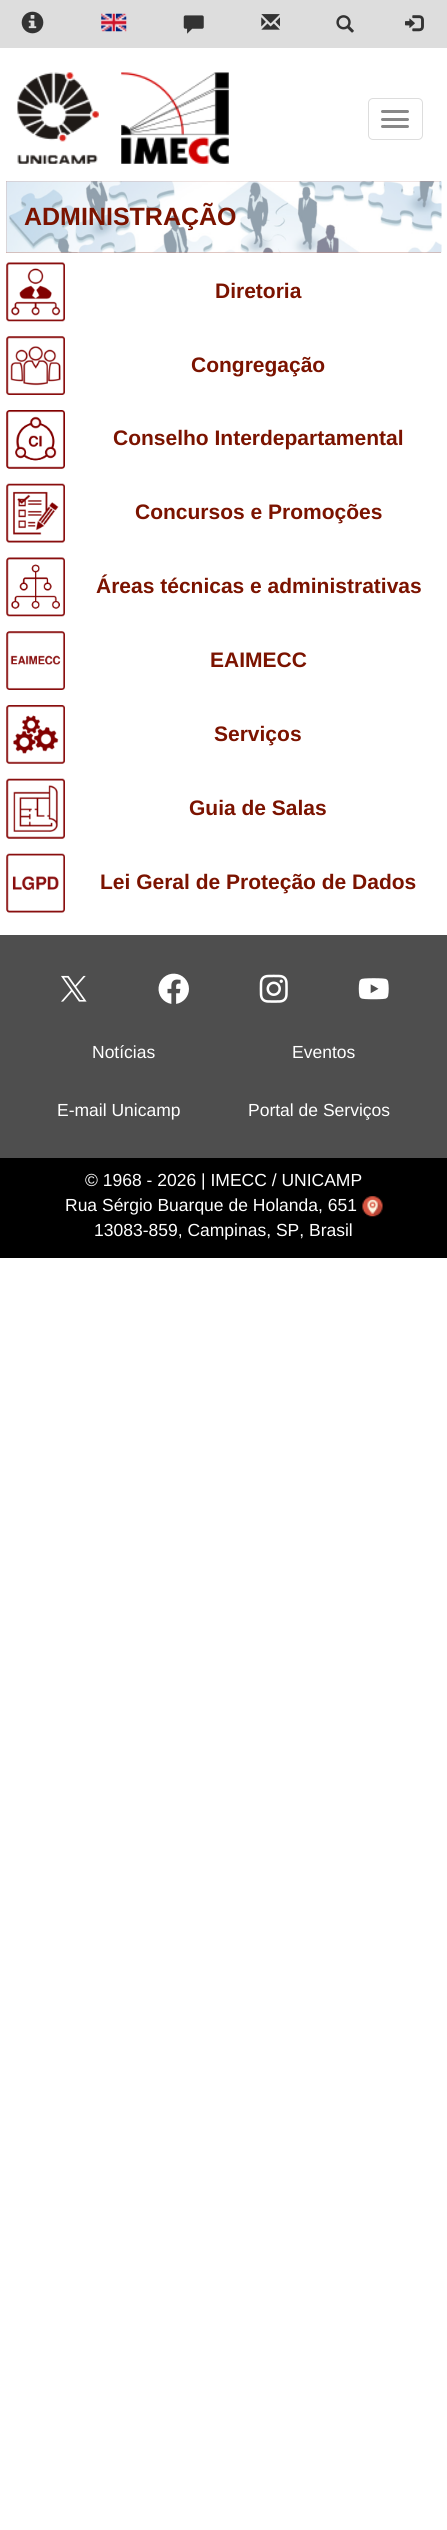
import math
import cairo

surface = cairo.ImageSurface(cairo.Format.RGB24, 447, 2530)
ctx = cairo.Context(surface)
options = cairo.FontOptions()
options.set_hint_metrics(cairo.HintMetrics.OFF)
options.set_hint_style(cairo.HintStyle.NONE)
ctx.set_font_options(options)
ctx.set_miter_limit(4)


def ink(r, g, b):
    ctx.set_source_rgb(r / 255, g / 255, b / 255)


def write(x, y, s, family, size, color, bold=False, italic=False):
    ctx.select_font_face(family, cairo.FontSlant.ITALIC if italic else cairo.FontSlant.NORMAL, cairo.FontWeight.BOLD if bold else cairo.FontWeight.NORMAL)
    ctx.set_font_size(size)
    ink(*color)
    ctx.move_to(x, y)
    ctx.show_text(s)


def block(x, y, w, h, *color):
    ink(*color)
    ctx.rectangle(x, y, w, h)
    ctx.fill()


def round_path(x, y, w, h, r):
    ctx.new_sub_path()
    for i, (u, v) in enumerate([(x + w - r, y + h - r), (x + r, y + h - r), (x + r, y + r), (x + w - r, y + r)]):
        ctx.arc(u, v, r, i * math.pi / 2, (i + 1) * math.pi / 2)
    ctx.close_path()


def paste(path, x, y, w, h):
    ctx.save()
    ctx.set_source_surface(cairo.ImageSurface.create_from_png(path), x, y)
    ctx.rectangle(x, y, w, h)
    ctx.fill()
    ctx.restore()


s1 = dict(family="Liberation Sans", size=25, color=(123, 19, 0), bold=True)
s2 = dict(family="Liberation Sans", size=21, color=(123, 19, 0), bold=True)
s3 = dict(family="Liberation Sans", size=17.5, color=(255, 255, 255))

ink(255, 255, 255)
ctx.paint()
block(0, 0, 447, 48, 221, 221, 221)
paste("pic1.png", 21, 11, 23, 23)
paste("pic2.png", 101, 13, 26, 19)
paste("pic3.png", 183, 15, 21, 19)
paste("pic4.png", 261, 14, 19, 16)
paste("pic5.png", 336, 15, 18, 18)
paste("pic6.png", 405, 15, 19, 17)
paste("pic7.png", 17, 72, 82, 92)
paste("pic8.png", 121, 72, 108, 92)
round_path(368.5, 98.5, 54, 41, 4.5)
ctx.set_line_width(1)
ctx.stroke()
ink(136, 136, 136)
round_path(381, 110, 28, 3, 1.5)
ctx.fill()
round_path(381, 118, 28, 3, 1.5)
ctx.fill()
round_path(381, 125, 28, 3, 1.5)
ctx.fill()
block(6, 181, 435, 72, 192, 142, 133)
paste("pic9.png", 6, 181, 436, 72)
write(24, 225, "ADMINISTRAÇÃO", **s1)
paste("pic10.png", 6, 262, 59, 60)
write(215, 298, "Diretoria", **s2)
paste("pic11.png", 6, 336, 59, 59)
write(191, 372, "Congregação", **s2)
paste("pic12.png", 6, 410, 59, 59)
write(113, 445, "Conselho Interdepartamental", **s2)
paste("pic13.png", 6, 483, 59, 60)
write(135, 519, "Concursos e Promoções", **s2)
paste("pic14.png", 6, 557, 59, 60)
write(96, 593, "Áreas técnicas e administrativas", **s2)
paste("pic15.png", 6, 631, 59, 59)
write(210, 667, "EAIMECC", **s2)
paste("pic16.png", 6, 705, 59, 59)
write(214, 741, "Serviços", **s2)
paste("pic17.png", 6, 778, 59, 61)
write(189, 815, "Guia de Salas", **s2)
paste("pic18.png", 6, 853, 59, 60)
write(100, 889, "Lei Geral de Proteção de Dados", **s2)
block(0, 935, 447, 223, 78, 78, 78)
paste("pic19.png", 61, 975, 26, 27)
paste("pic20.png", 158, 973, 31, 31)
paste("pic21.png", 259, 974, 29, 29)
paste("pic22.png", 358, 978, 31, 22)
write(92, 1058, "Notícias", **s3)
write(292, 1058, "Eventos", **s3)
write(57, 1116, "E-mail Unicamp", **s3)
write(248, 1116, "Portal de Serviços", **s3)
block(0, 1158, 447, 100, 0, 0, 0)
write(85, 1186, "© 1968 - 2026 | IMECC / UNICAMP", **s3)
write(65, 1211, "Rua Sérgio Buarque de Holanda, 651", **s3)
paste("pic23.png", 362, 1196, 21, 21)
write(94, 1236, "13083-859, Campinas, SP, Brasil", **s3)
surface.write_to_png("screenshot.png")
